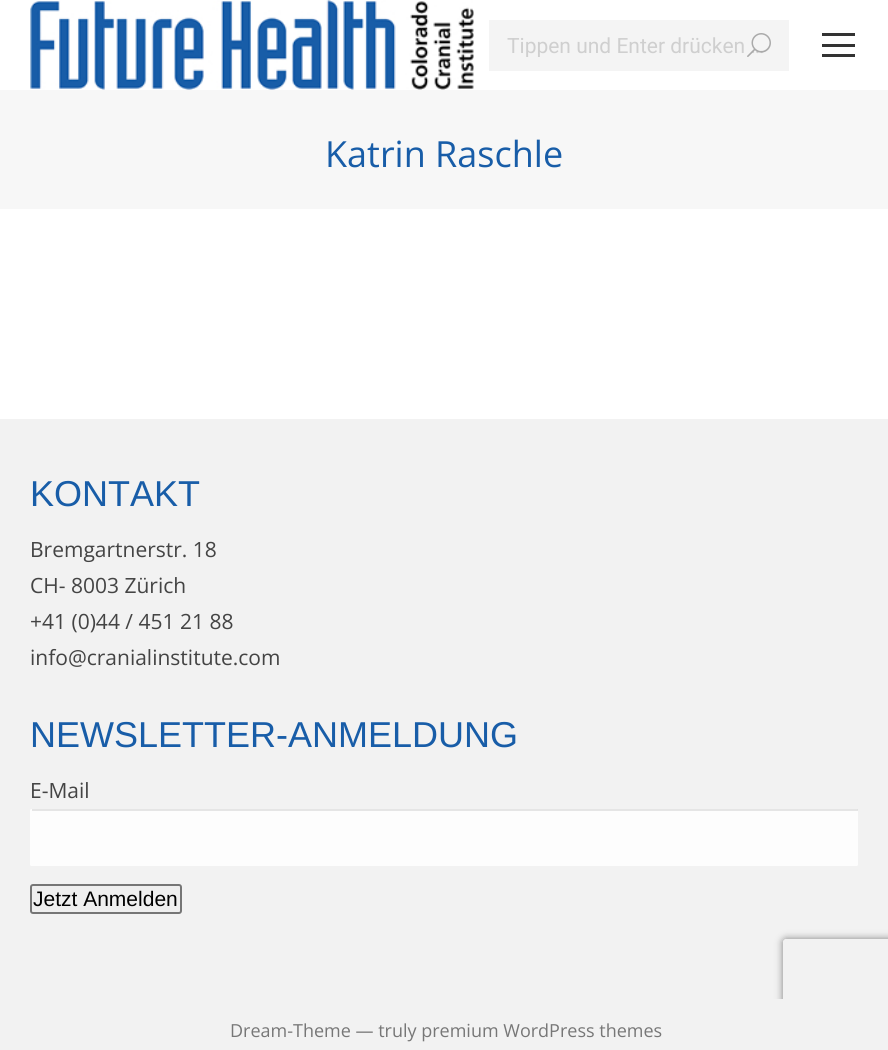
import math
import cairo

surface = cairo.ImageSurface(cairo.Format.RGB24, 888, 1050)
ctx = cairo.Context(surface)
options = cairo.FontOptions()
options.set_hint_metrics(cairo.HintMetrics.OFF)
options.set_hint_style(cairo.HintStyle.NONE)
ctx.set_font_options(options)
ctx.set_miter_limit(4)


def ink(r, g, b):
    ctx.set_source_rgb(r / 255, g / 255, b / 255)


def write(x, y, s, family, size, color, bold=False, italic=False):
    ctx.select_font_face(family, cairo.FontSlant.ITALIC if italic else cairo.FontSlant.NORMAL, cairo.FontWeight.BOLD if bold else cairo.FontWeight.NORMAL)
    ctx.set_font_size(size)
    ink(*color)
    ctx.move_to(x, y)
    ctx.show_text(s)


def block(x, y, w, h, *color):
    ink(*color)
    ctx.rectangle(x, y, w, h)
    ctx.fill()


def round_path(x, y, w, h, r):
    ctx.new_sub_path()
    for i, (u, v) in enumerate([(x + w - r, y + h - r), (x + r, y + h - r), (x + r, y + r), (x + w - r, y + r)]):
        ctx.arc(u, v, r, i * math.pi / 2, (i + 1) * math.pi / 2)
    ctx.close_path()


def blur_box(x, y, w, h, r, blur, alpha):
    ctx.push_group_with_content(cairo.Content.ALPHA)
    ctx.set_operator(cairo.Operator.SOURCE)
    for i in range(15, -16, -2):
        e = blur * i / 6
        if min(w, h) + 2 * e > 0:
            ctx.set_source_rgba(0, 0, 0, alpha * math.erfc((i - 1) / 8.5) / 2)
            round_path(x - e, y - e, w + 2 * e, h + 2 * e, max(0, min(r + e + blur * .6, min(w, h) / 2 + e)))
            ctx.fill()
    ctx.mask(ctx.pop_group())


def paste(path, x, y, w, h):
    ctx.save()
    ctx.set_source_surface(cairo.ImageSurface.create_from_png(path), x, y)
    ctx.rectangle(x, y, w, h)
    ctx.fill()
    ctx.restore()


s1 = dict(family="Roboto", size=21, color=(207, 207, 207))
s2 = dict(family="Open Sans", size=36, color=(24, 93, 168))
s3 = dict(family="Liberation Sans", size=36, color=(24, 93, 168))
s4 = dict(family="Open Sans", size=21, color=(68, 68, 68))
s5 = dict(family="Liberation Sans", size=21, color=(0, 0, 0))
s6 = dict(family="Open Sans", size=18, color=(119, 119, 119))

ink(255, 255, 255)
ctx.paint()
paste("pic1.png", 30, 0, 444, 90)
block(489, 20, 300, 51, 244, 244, 244)
ctx.save()
ctx.rectangle(507, 33, 264, 24)
ctx.clip()
write(507, 53, "Tippen und Enter drücken …", **s1)
ctx.restore()
paste("pic2.png", 747, 33, 24, 24)
block(822, 33, 33, 3, 51, 51, 51)
block(822, 44, 33, 3, 51, 51, 51)
block(822, 54, 33, 3, 51, 51, 51)
block(0, 90, 888, 119, 247, 247, 247)
write(325, 167, "Katrin Raschle", **s2)
block(0, 419, 888, 580, 242, 242, 242)
write(30, 506, "KONTAKT", **s3)
write(30, 557, "Bremgartnerstr. 18", **s4)
write(30, 593, "CH- 8003 Zürich", **s4)
write(30, 629, "+41 (0)44 / 451 21 88", **s4)
write(30, 665, "info@cranialinstitute.com", **s4)
write(30, 747, "NEWSLETTER-ANMELDUNG", **s3)
write(30, 798, "E-Mail", **s4)
ink(253, 253, 253)
round_path(30, 809, 828, 57, 1.5)
ctx.fill()
ctx.set_source_rgba(0.2, 0.2, 0.2, 0.12)
ctx.rectangle(32, 809, 826, 2)
ctx.fill()
ink(239, 239, 239)
round_path(31, 885, 150, 28, 2)
ctx.fill_preserve()
ink(118, 118, 118)
ctx.stroke()
write(33, 906, "Jetzt Anmelden", **s5)
ctx.save()
ctx.set_fill_rule(cairo.FillRule.EVEN_ODD)
ctx.new_path()
ctx.move_to(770, 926)
ctx.line_to(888, 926)
ctx.line_to(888, 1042)
ctx.line_to(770, 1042)
ctx.close_path()
ctx.move_to(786, 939)
ctx.line_to(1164, 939)
ctx.curve_to(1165.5, 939, 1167, 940.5, 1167, 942)
ctx.line_to(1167, 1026)
ctx.curve_to(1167, 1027.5, 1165.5, 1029, 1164, 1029)
ctx.line_to(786, 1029)
ctx.curve_to(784.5, 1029, 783, 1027.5, 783, 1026)
ctx.line_to(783, 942)
ctx.curve_to(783, 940.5, 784.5, 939, 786, 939)
ctx.close_path()
ctx.clip()
ink(128, 128, 128)
blur_box(783, 939, 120, 90, 3, 4, 1)
ctx.restore()
block(0, 999, 888, 51, 242, 242, 242)
write(230, 1037, "Dream-Theme — truly premium WordPress themes", **s6)
surface.write_to_png("screenshot.png")
